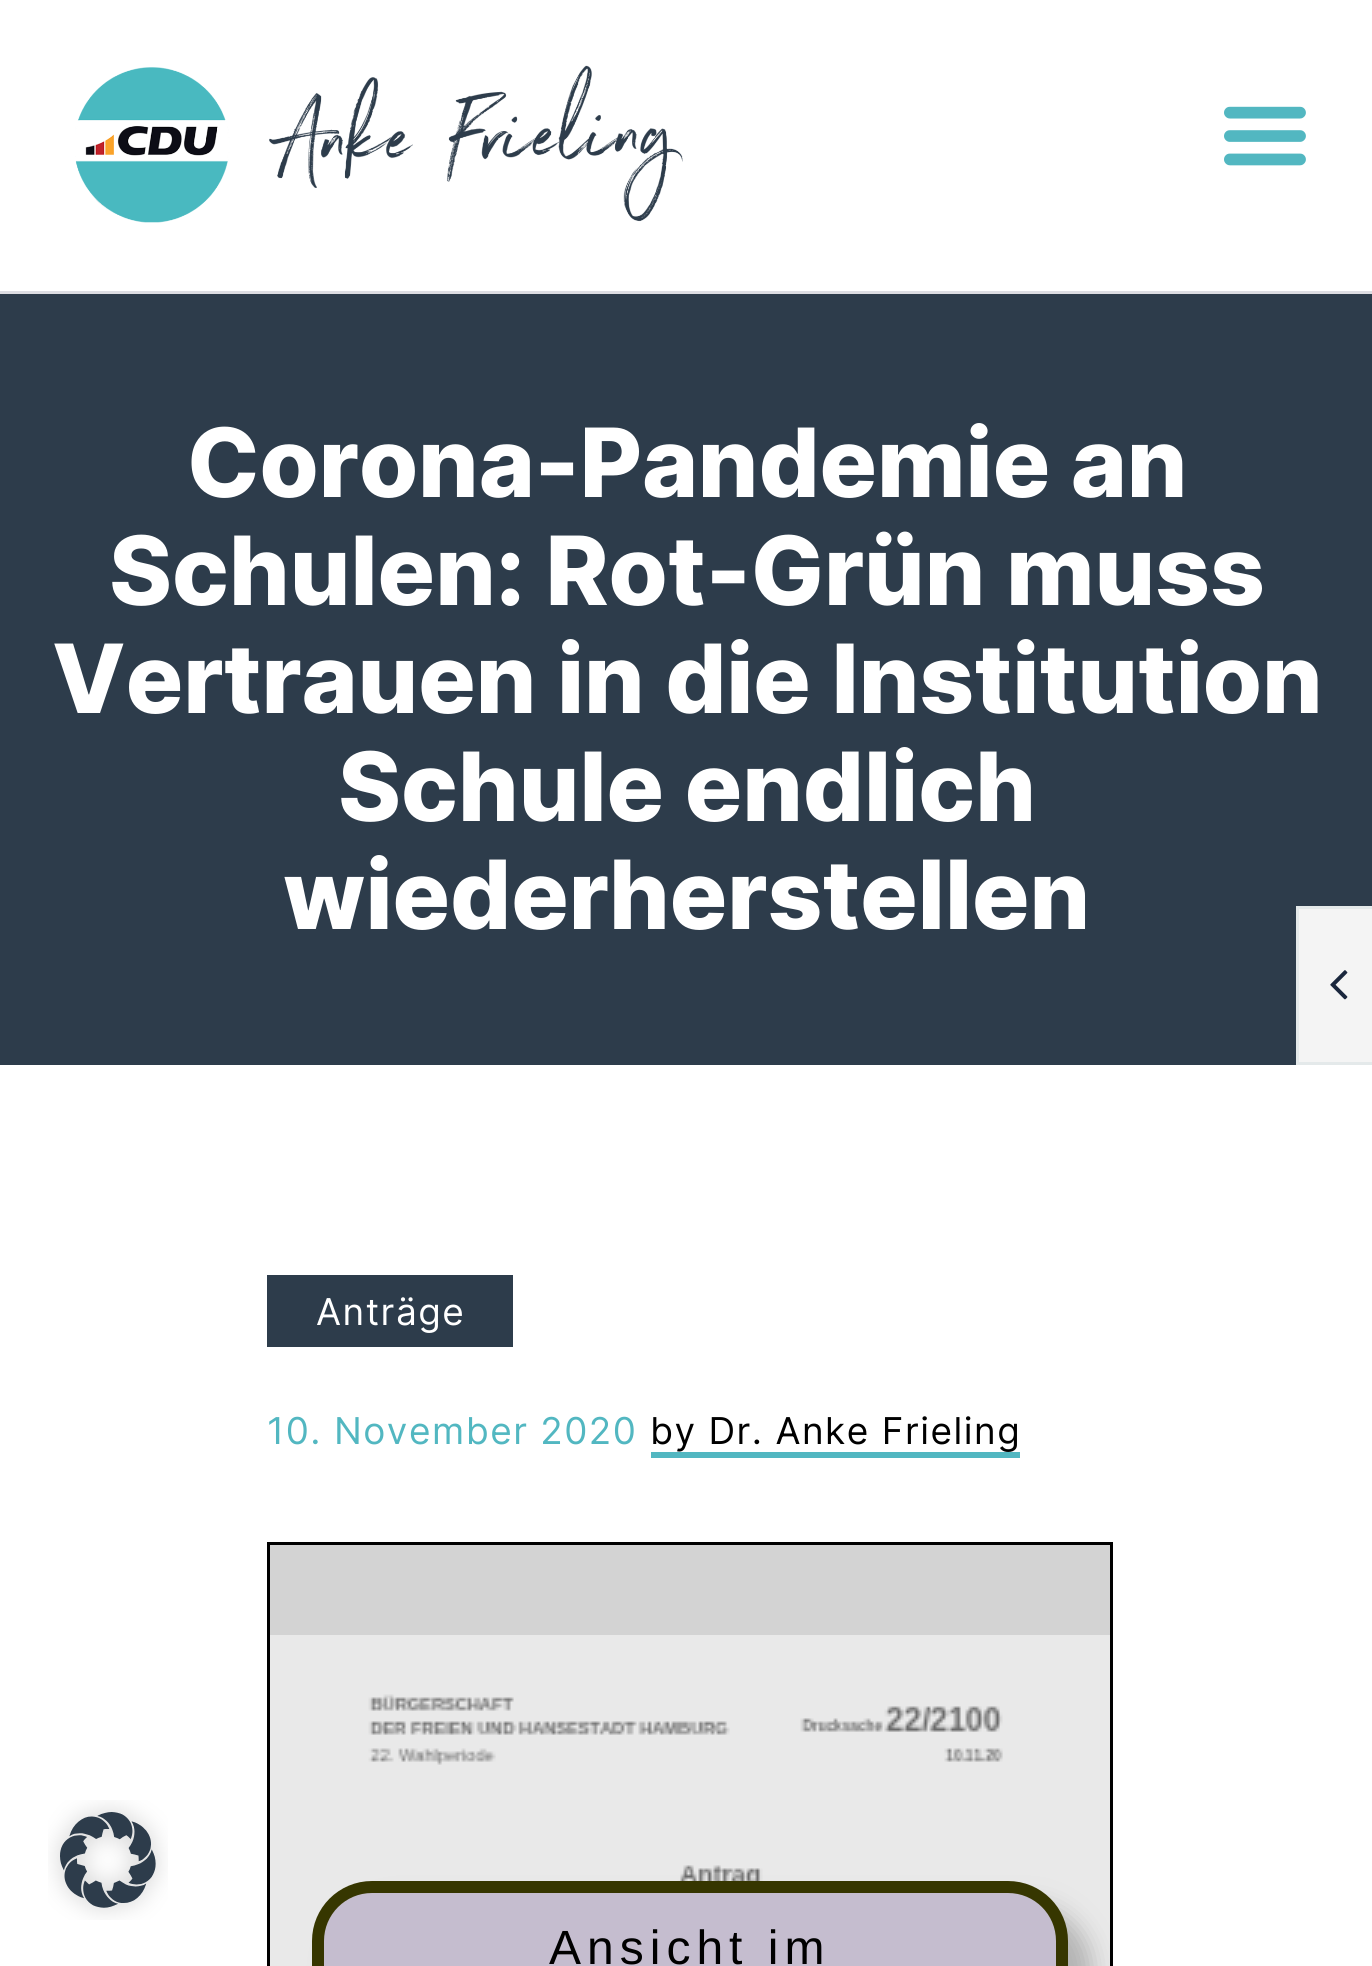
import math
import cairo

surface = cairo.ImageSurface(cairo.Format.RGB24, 1372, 1966)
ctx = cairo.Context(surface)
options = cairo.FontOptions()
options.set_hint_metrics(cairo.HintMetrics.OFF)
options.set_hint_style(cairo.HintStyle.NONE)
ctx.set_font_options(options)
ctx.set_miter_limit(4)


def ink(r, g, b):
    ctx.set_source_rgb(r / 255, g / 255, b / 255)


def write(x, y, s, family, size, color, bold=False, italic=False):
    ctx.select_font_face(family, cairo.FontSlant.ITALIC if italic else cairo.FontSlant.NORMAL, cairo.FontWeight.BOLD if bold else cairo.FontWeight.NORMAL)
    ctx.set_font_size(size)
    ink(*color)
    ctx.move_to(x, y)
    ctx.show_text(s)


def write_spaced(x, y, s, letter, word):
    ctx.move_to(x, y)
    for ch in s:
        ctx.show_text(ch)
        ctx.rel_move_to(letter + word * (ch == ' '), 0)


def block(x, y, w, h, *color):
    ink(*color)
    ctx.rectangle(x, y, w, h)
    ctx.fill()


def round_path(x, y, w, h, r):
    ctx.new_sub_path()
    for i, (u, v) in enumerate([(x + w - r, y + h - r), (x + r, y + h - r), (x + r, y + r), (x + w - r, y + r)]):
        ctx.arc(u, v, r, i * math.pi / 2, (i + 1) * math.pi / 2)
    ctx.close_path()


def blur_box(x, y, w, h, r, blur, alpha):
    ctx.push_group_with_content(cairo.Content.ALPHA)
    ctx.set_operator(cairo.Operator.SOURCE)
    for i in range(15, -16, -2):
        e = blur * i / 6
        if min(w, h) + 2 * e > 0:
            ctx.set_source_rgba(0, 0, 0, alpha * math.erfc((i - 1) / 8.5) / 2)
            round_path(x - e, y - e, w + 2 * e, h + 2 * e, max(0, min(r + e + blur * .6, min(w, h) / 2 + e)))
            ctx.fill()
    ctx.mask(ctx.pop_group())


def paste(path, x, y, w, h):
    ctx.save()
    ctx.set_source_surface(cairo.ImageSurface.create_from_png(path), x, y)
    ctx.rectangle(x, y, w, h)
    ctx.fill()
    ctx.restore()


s1 = dict(family="Inter ExtraBold", size=95.5, color=(255, 255, 255))

ink(255, 255, 255)
ctx.paint()
block(0, 291, 1372, 3, 221, 221, 226)
paste("pic1.png", 75, 65, 608, 158)
paste("pic2.png", 1224, 106, 82, 60)
block(0, 294, 1372, 771, 45, 60, 75)
write(187, 497, "Corona-Pandemie an", **s1)
write(109, 605, "Schulen: Rot-Grün muss", **s1)
write(52, 713, "Vertrauen in die Institution", **s1)
write(338, 821, "Schule endlich", **s1)
write(283, 929, "wiederherstellen", **s1)
ink(244, 244, 244)
ctx.rectangle(1297.5, 907.5, 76, 156)
ctx.fill_preserve()
ink(228, 233, 234)
ctx.set_line_width(3)
ctx.stroke()
paste("pic3.png", 1330, 970, 18, 30)
block(267, 1275, 246, 72, 45, 60, 75)
ctx.select_font_face("Inter")
ctx.set_font_size(37)
ink(255, 255, 255)
write_spaced(316, 1325, "Anträge", 1.5, 0)
ink(82, 183, 193)
write_spaced(267, 1444, "10. November 2020", 1.5, 0)
block(651, 1452, 369, 6, 82, 183, 193)
ink(0, 0, 0)
write_spaced(650, 1444, "by Dr. Anke Frieling", 1.5, 0)
block(270, 1545, 840, 90, 211, 211, 211)
ctx.rectangle(268.5, 1543.5, 843, 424)
ink(0, 0, 0)
ctx.stroke()
block(270, 1635, 840, 331, 233, 233, 233)
paste("pic4.png", 368, 1694, 635, 188)
ctx.save()
ctx.rectangle(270, 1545, 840, 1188)
ctx.clip()
ink(179, 179, 179)
blur_box(336, 1905, 756, 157, 60, 12, 1)
ctx.restore()
ink(197, 189, 207)
round_path(318, 1887, 744, 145, 54)
ctx.fill_preserve()
ink(54, 54, 0)
ctx.set_line_width(12)
ctx.stroke()
ctx.select_font_face("Liberation Sans")
ctx.set_font_size(48)
ink(0, 0, 0)
write_spaced(549, 1964, "Ansicht im", 6, 0)
paste("pic5.png", 48, 1800, 120, 120)
surface.write_to_png("screenshot.png")
